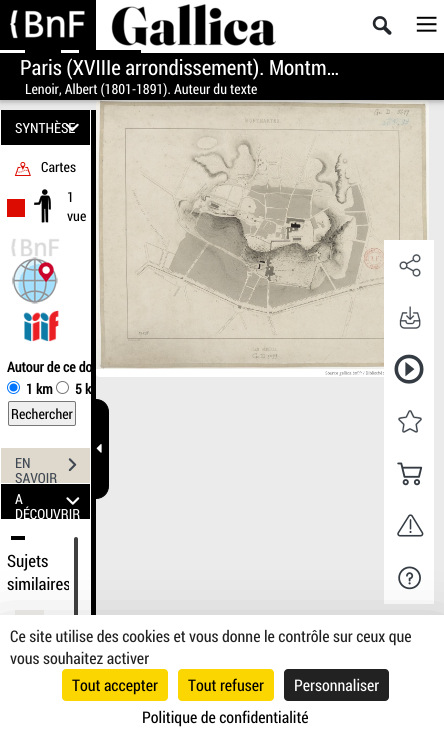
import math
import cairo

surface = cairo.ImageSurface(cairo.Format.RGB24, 444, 743)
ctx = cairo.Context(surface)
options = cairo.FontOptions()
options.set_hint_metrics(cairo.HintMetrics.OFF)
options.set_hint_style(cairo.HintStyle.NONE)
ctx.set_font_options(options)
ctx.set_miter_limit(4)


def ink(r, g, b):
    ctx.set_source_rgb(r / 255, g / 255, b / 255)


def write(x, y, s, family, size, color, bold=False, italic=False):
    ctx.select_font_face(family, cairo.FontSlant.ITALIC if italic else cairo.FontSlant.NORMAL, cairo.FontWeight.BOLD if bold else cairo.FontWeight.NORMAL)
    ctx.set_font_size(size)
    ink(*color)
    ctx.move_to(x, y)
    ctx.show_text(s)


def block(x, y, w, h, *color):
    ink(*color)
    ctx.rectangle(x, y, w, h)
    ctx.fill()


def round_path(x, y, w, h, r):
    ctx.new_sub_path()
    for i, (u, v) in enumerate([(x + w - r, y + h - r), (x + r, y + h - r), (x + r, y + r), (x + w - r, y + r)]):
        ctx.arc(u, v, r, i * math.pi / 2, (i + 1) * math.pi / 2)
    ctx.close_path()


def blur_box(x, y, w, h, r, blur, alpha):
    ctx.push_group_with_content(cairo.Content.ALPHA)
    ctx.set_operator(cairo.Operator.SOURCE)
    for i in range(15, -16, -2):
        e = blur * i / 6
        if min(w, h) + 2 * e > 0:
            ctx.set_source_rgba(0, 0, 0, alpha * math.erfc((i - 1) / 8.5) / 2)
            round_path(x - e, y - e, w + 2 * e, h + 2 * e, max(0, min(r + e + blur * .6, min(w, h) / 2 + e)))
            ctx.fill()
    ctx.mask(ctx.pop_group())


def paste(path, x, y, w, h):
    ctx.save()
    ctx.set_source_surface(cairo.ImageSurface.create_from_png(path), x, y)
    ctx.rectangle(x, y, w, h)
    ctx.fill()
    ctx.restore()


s1 = dict(family="Roboto Condensed", size=21, color=(255, 255, 255))
s2 = dict(family="Roboto Condensed", size=14, color=(255, 255, 255))
s3 = dict(family="Roboto Condensed", size=14, color=(0, 0, 0))
s4 = dict(family="Roboto Condensed", size=14, color=(0, 0, 0), bold=True)
s5 = dict(family="Roboto Condensed", size=14, color=(64, 73, 83))
s6 = dict(family="Roboto Condensed", size=17, color=(0, 0, 0))
s7 = dict(family="Roboto Condensed", size=16, color=(34, 34, 34))
s8 = dict(family="Roboto Condensed", size=16, color=(0, 0, 0))
s9 = dict(family="Roboto Condensed", size=16, color=(255, 255, 255))

ink(235, 235, 235)
ctx.paint()
paste("pic14.png", 96, 100, 333, 277)
ink(0, 0, 0)
blur_box(0, 52, 444, 50, 0, 5, 0.12)
blur_box(0, 52, 444, 50, 0, 2, 0.16)
block(96, 0, 348, 50, 255, 255, 255)
paste("pic1.png", 0, 0, 96, 50)
paste("pic2.png", 111, 4, 165, 42)
paste("pic3.png", 372, 16, 20, 19)
paste("pic4.png", 416, 16, 21, 16)
block(0, 53, 444, 47, 0, 0, 0)
block(0, 50, 444, 3, 255, 255, 255)
block(25, 50, 36, 3, 0, 0, 0)
block(79, 50, 62, 3, 0, 0, 0)
write(20, 75, "Paris (XVIIIe arrondissement). Montm…", **s1)
write(25, 94, "Lenoir, Albert (1801-1891). Auteur du texte", **s2)
block(91, 110, 5, 505, 0, 0, 0)
block(0, 110, 91, 505, 255, 255, 255)
block(1, 110, 89, 35, 0, 0, 0)
write(15, 133, "SYNTHÈSE", **s2)
paste("pic5.png", 65, 123, 14, 9)
paste("pic6.png", 14, 161, 17, 15)
write(41, 172, "Cartes", **s3)
block(7, 199, 18, 18, 221, 12, 3)
paste("pic7.png", 34, 189, 17, 34)
write(67, 202, "1", **s3)
write(67, 221, "vue", **s3)
paste("pic8.png", 11, 238, 49, 19)
paste("pic9.png", 12, 257, 46, 47)
paste("pic10.png", 23, 310, 36, 32)
ctx.save()
ctx.rectangle(0, 146, 91, 302)
ctx.clip()
write(7, 372, "Autour de ce do", **s4)
ctx.restore()
ctx.new_path()
ctx.arc(13.5, 387.5, 6, 0, 2 * math.pi)
ink(0, 117, 255)
ctx.set_line_width(1)
ctx.stroke()
ctx.arc(13.5, 387.5, 4, 0, 2 * math.pi)
ctx.fill()
write(26, 394, "1 km", **s4)
ctx.new_path()
ctx.arc(62.5, 387.5, 6, 0, 2 * math.pi)
ink(118, 118, 118)
ctx.stroke()
write(75, 394, "5 k", **s4)
ink(239, 239, 239)
round_path(8.5, 401.5, 67, 24, 1.5)
ctx.fill_preserve()
ink(118, 118, 118)
ctx.stroke()
write(11, 419, "Rechercher", **s3)
block(1, 448, 89, 35, 223, 217, 205)
write(15, 468, "EN", **s5)
paste("pic11.png", 68, 458, 9, 14)
write(15, 483, "SAVOIR", **s5)
block(1, 484, 89, 35, 0, 0, 0)
write(15, 504, "A", **s2)
paste("pic12.png", 66, 497, 14, 8)
write(15, 519, "DÉCOUVRIR", **s2)
write(7, 567, "Sujets", **s6)
block(11, 536, 14, 4, 0, 0, 0)
ctx.save()
ctx.rectangle(7, 527, 62, 211)
ctx.clip()
write(7, 590, "similaires", **s6)
ctx.restore()
block(15, 610, 29, 5, 242, 241, 237)
ink(64, 64, 64)
round_path(74, 537, 4, 107, 2)
ctx.fill()
ink(0, 0, 0)
ctx.new_path()
ctx.move_to(96.5, 399.5)
ctx.line_to(96, 399.5)
ctx.curve_to(103, 399.5, 108.5, 405, 108.5, 412)
ctx.line_to(108.5, 486)
ctx.curve_to(108.5, 493, 103, 498.5, 96, 498.5)
ctx.line_to(96.5, 498.5)
ctx.close_path()
ctx.fill_preserve()
ctx.stroke()
paste("pic13.png", 96, 444, 6, 9)
block(384, 240, 50, 364, 255, 255, 255)
paste("pic15.png", 399, 254, 22, 23)
paste("pic16.png", 399, 306, 22, 23)
paste("pic17.png", 394, 354, 30, 30)
paste("pic18.png", 398, 410, 24, 23)
paste("pic19.png", 397, 462, 26, 24)
paste("pic20.png", 397, 514, 27, 23)
paste("pic21.png", 398, 566, 23, 24)
ink(0, 0, 0)
blur_box(0, 635, 444, 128, 0, 30, 0.25)
block(0, 615, 444, 128, 255, 255, 255)
write(10, 642, "Ce site utilise des cookies et vous donne le contrôle sur ceux que", **s7)
write(10, 664, "vous souhaitez activer", **s7)
ink(251, 214, 0)
round_path(62, 669, 106, 32, 4)
ctx.fill()
write(72, 691, "Tout accepter", **s8)
ink(251, 214, 0)
round_path(178, 669, 96, 32, 4)
ctx.fill()
write(188, 691, "Tout refuser", **s8)
ink(34, 34, 34)
round_path(284, 669, 105, 32, 4)
ctx.fill()
write(294, 691, "Personnaliser", **s9)
write(142, 723, "Politique de confidentialité", **s8)
surface.write_to_png("screenshot.png")
